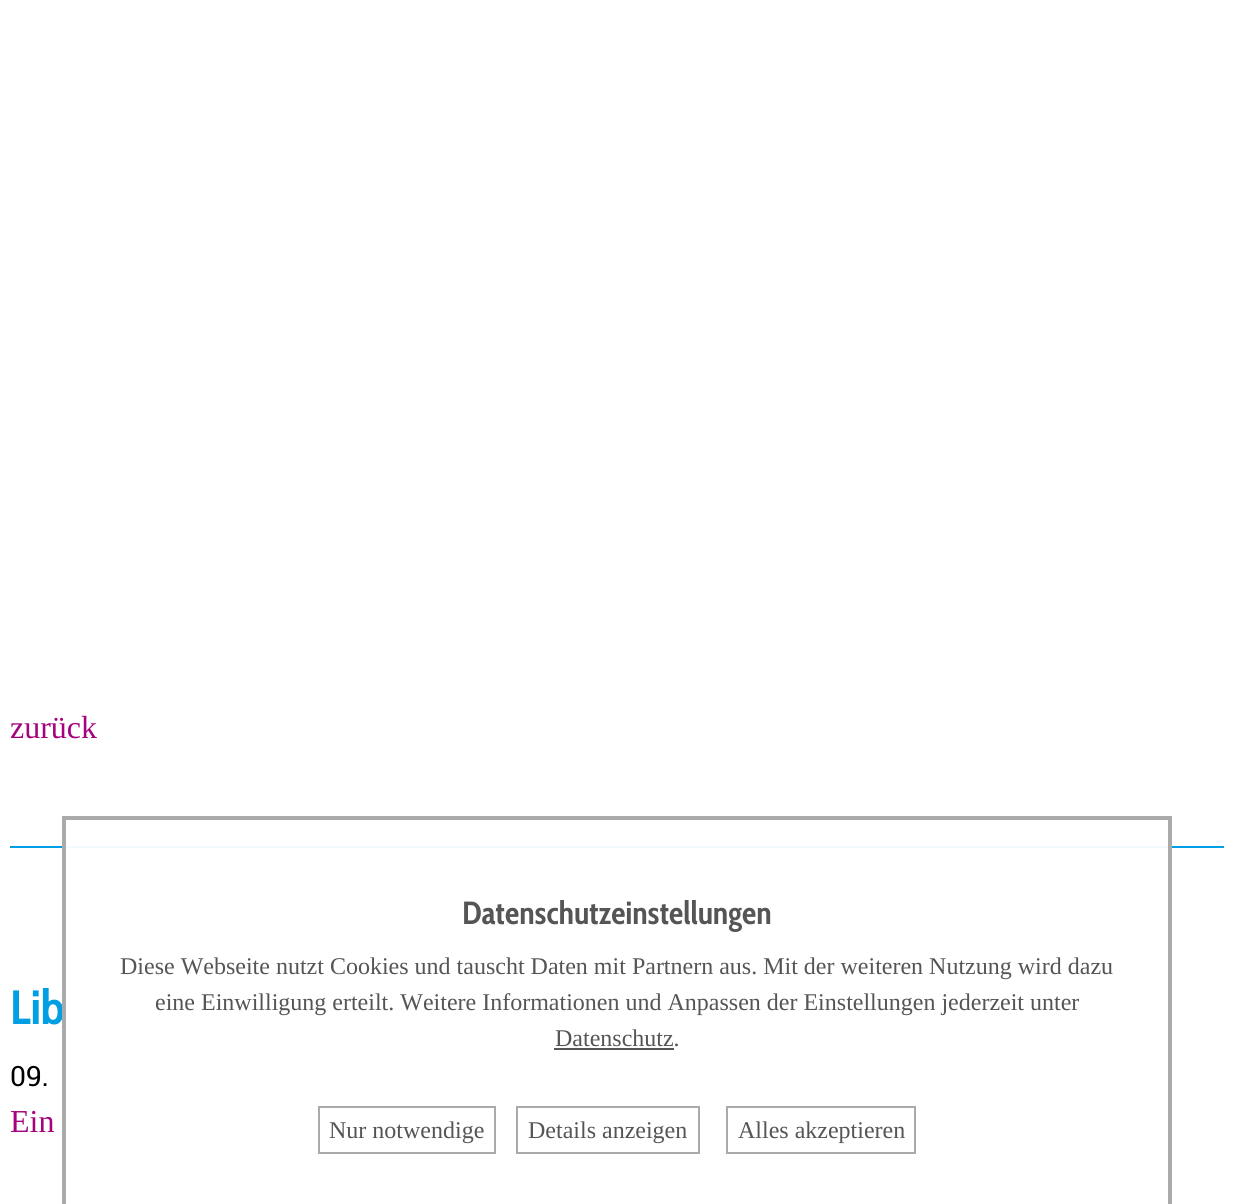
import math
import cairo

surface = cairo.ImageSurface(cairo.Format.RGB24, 1233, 1204)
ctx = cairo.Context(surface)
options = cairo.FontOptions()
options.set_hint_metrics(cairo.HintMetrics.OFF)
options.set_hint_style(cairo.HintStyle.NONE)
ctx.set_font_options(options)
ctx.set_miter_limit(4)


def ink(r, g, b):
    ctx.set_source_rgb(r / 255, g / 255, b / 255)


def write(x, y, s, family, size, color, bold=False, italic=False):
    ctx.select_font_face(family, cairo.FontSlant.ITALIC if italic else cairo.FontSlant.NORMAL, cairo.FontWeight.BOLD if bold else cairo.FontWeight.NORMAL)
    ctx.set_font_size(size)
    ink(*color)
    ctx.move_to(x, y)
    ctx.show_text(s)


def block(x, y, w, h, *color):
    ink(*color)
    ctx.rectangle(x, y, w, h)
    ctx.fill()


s1 = dict(family="Liberation Serif", size=32, color=(165, 2, 125))
s2 = dict(family="Cabin Condensed", size=48, color=(0, 158, 227), bold=True)
s3 = dict(family="Roboto Slab", size=28, color=(0, 0, 0))
s4 = dict(family="Cabin Condensed", size=32, color=(85, 85, 85), bold=True)
s5 = dict(family="Liberation Serif", size=24, color=(85, 85, 85))

ink(255, 255, 255)
ctx.paint()
write(10, 738, "zurück", **s1)
block(10, 846, 1214, 2, 0, 158, 227)
write(10, 1024, "Lib", **s2)
write(10, 1086, "09.", **s3)
write(10, 1132, "Ein", **s1)
ctx.set_source_rgba(1, 1, 1, 0.95)
ctx.rectangle(66, 846, 1102, 2)
ctx.fill()
block(62, 816, 1110, 4, 170, 170, 170)
block(1168, 816, 4, 388, 170, 170, 170)
block(62, 816, 4, 388, 170, 170, 170)
write(462, 924, "Datenschutzeinstellungen", **s4)
write(120, 974, "Diese Webseite nutzt Cookies und tauscht Daten mit Partnern aus. Mit der weiteren Nutzung wird dazu", **s5)
write(155, 1010, "eine Einwilligung erteilt. Weitere Informationen und Anpassen der Einstellungen jederzeit unter", **s5)
write(555, 1046, "Datenschutz.", **s5)
block(554, 1048, 120, 2, 85, 85, 85)
ctx.rectangle(319, 1107, 176, 46)
ink(170, 170, 170)
ctx.stroke()
write(329, 1138, "Nur notwendige", **s5)
ctx.rectangle(517, 1107, 182, 46)
ink(170, 170, 170)
ctx.stroke()
write(528, 1138, "Details anzeigen", **s5)
ctx.rectangle(727, 1107, 188, 46)
ink(170, 170, 170)
ctx.stroke()
write(738, 1138, "Alles akzeptieren", **s5)
surface.write_to_png("screenshot.png")
